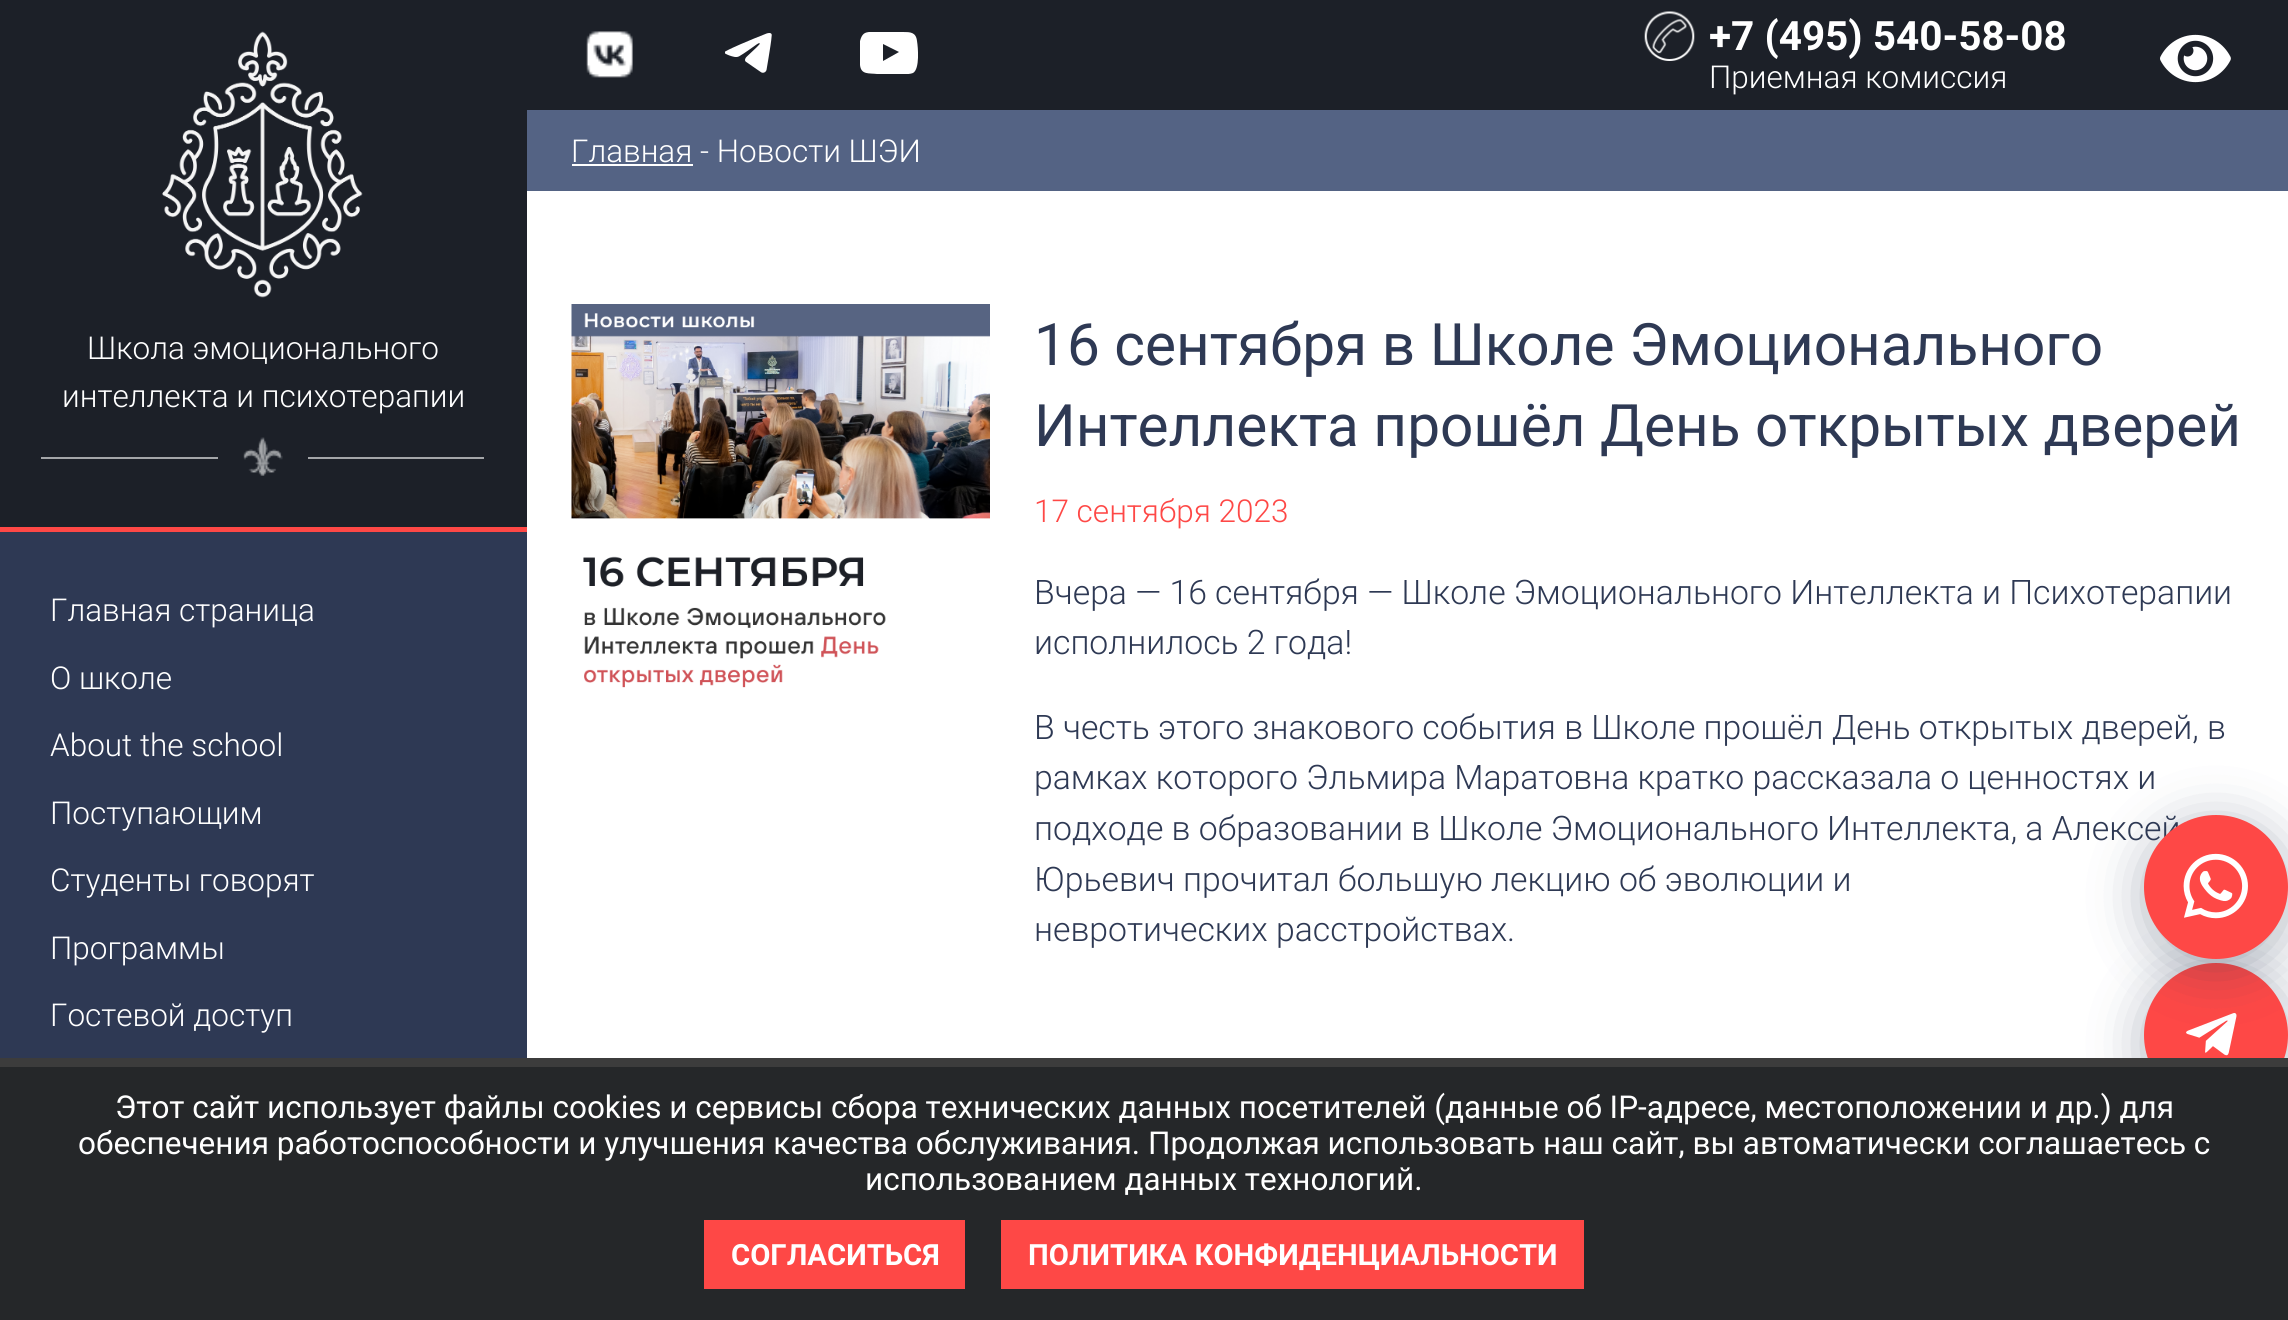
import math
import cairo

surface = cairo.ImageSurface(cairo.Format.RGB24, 2288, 1320)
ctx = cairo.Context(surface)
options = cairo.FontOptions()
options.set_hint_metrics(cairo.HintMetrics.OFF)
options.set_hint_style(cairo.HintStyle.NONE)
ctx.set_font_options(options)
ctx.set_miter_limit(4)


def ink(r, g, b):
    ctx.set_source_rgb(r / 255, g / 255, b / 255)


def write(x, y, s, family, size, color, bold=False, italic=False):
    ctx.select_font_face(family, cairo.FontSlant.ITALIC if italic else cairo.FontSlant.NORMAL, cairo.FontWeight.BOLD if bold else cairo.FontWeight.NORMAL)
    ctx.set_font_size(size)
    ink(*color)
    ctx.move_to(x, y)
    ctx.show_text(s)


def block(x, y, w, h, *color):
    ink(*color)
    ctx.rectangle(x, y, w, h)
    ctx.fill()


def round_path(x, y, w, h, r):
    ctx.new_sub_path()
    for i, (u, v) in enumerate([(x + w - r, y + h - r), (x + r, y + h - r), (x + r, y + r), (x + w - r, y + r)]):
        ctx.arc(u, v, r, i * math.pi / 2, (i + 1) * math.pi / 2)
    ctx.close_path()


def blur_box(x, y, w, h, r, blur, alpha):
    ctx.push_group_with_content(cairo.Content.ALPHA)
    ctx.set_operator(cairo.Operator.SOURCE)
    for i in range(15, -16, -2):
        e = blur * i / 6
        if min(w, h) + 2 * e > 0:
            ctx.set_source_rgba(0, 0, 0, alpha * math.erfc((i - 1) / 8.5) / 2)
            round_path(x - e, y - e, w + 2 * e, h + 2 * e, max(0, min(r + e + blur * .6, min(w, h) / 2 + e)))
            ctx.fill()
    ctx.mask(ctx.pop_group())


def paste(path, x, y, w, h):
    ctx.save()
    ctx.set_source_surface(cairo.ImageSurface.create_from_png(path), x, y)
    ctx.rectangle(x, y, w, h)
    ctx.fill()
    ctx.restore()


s1 = dict(family="Roboto Light", size=31.5, color=(255, 255, 255))
s2 = dict(family="Roboto", size=40.5, color=(255, 255, 255), bold=True)
s3 = dict(family="Roboto", size=58.5, color=(46, 57, 84))
s4 = dict(family="Roboto Light", size=31.5, color=(254, 72, 70))
s5 = dict(family="Roboto Light", size=33.75, color=(46, 57, 84))
s6 = dict(family="Roboto", size=31.5, color=(255, 255, 255))
s7 = dict(family="Roboto", size=29.25, color=(255, 255, 255), bold=True)

ink(28, 32, 40)
ctx.paint()
paste("pic1.png", 162, 31, 201, 267)
write(87, 359, "Школа эмоционального", **s1)
write(62, 407, "интеллекта и психотерапии", **s1)
block(41, 457, 177, 2, 164, 166, 169)
paste("pic2.png", 243, 437, 40, 39)
block(308, 457, 176, 2, 164, 166, 169)
block(0, 532, 527, 526, 46, 57, 84)
block(0, 527, 527, 5, 254, 72, 70)
write(50, 621, "Главная страница", **s1)
write(50, 689, "О школе", **s1)
write(50, 756, "About the school", **s1)
write(50, 824, "Поступающим", **s1)
write(50, 891, "Студенты говорят", **s1)
write(50, 959, "Программы", **s1)
write(50, 1026, "Гостевой доступ", **s1)
block(527, 191, 1761, 867, 255, 255, 255)
paste("pic3.png", 586, 31, 47, 47)
paste("pic4.png", 725, 33, 47, 40)
ctx.save()
ctx.rectangle(860, 32, 58, 42)
ctx.clip()
ctx.new_path()
ctx.move_to(883, 61)
ctx.line_to(883, 44)
ctx.line_to(899, 52)
ctx.close_path()
ctx.move_to(917, 41)
ctx.curve_to(916, 32, 910, 32, 903, 32)
ctx.line_to(884, 32)
ctx.curve_to(879, 32, 869, 31, 865, 33)
ctx.curve_to(857, 37, 859, 58, 860, 65)
ctx.curve_to(861, 75, 869, 73, 877, 74)
ctx.line_to(893, 74)
ctx.curve_to(898, 74, 908, 75, 913, 73)
ctx.curve_to(920, 69, 918, 47, 917, 41)
ctx.close_path()
ctx.fill()
ctx.restore()
paste("pic5.png", 1644, 11, 51, 50)
write(1709, 50, "+7 (495) 540-58-08", **s2)
write(1709, 88, "Приемная комиссия", **s1)
paste("pic6.png", 2160, 34, 71, 49)
block(527, 110, 1761, 81, 84, 99, 132)
write(571, 162, "Главная - Новости ШЭИ", **s1)
block(572, 164, 121, 2, 255, 255, 255)
paste("pic7.png", 571, 304, 419, 384)
write(1034, 365, "16 сентября в Школе Эмоционального", **s3)
write(1034, 446, "Интеллекта прошёл День открытых дверей", **s3)
write(1034, 522, "17 сентября 2023", **s4)
write(1034, 604, "Вчера — 16 сентября — Школе Эмоционального Интеллекта и Психотерапии", **s5)
write(1034, 654, "исполнилось 2 года!", **s5)
write(1034, 739, "В честь этого знакового события в Школе прошёл День открытых дверей, в", **s5)
write(1034, 789, "рамках которого Эльмира Маратовна кратко рассказала о ценностях и", **s5)
write(1034, 840, "подходе в образовании в Школе Эмоционального Интеллекта, а Алексей", **s5)
write(1034, 891, "Юрьевич прочитал большую лекцию об эволюции и", **s5)
write(1034, 941, "невротических расстройствах.", **s5)
ink(42, 57, 84)
blur_box(2144, 972, 144, 144, 72, 27, 0.37)
ink(254, 72, 70)
ctx.arc(2216, 1035, 72, 0, 2 * math.pi)
ctx.fill()
paste("pic9.png", 2186, 1013, 51, 43)
ink(42, 57, 84)
blur_box(2144, 824, 144, 144, 72, 27, 0.37)
ink(254, 72, 70)
ctx.arc(2216, 887, 72, 0, 2 * math.pi)
ctx.fill()
paste("pic8.png", 2183, 853, 65, 66)
block(0, 1067, 2288, 253, 37, 39, 41)
block(0, 1058, 2288, 9, 60, 60, 60)
write(115, 1118, "Этот сайт использует файлы cookies и сервисы сбора технических данных посетителей (данные об IP-адресе, местоположении и др.) для", **s6)
write(78, 1154, "обеспечения работоспособности и улучшения качества обслуживания. Продолжая использовать наш сайт, вы автоматически соглашаетесь с", **s6)
write(865, 1190, "использованием данных технологий.", **s6)
block(704, 1220, 261, 69, 254, 72, 70)
write(731, 1265, "СОГЛАСИТЬСЯ", **s7)
block(1001, 1220, 583, 69, 254, 72, 70)
write(1028, 1265, "ПОЛИТИКА КОНФИДЕНЦИАЛЬНОСТИ", **s7)
surface.write_to_png("screenshot.png")
